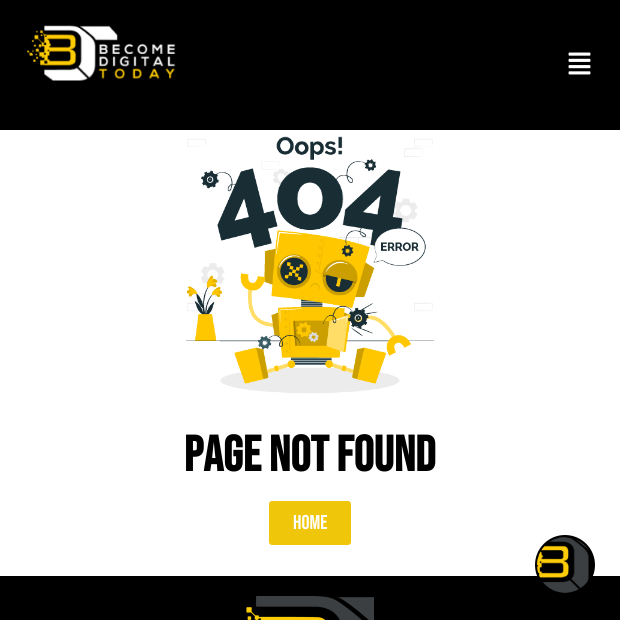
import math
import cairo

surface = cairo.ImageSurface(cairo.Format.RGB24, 620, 620)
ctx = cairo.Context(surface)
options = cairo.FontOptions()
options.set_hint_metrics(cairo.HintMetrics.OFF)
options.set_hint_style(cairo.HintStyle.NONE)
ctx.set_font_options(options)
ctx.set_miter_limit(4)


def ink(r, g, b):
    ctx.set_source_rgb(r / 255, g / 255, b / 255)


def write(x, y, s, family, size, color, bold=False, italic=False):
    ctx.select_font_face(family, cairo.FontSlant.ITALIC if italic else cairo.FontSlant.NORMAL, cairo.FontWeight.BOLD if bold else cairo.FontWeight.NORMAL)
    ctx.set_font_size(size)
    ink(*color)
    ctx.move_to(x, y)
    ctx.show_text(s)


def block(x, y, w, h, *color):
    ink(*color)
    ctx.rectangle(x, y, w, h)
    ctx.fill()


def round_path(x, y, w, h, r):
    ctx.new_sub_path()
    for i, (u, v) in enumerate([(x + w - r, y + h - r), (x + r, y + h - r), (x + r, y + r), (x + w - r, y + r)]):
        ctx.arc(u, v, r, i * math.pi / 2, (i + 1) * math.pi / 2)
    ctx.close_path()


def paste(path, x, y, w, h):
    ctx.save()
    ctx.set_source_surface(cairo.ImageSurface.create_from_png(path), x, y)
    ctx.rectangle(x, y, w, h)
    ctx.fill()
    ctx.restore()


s1 = dict(family="Bebas Neue", size=50, color=(0, 0, 0), bold=True)
s2 = dict(family="Bebas Neue", size=20, color=(255, 255, 255))

ink(255, 255, 255)
ctx.paint()
block(0, 0, 620, 130, 0, 0, 0)
paste("pic1.png", 27, 25, 149, 56)
paste("pic2.png", 568, 52, 23, 23)
paste("pic3.png", 185, 136, 250, 258)
write(184, 471, "Page Not Found", **s1)
ink(240, 198, 11)
round_path(269, 501, 82, 44, 3)
ctx.fill()
write(293, 529, "HOME", **s2)
block(0, 576, 620, 44, 0, 0, 0)
paste("pic4.png", 246, 596, 128, 24)
ctx.arc(565, 565, 30, 0, 2 * math.pi)
ctx.fill()
paste("pic5.png", 537, 537, 52, 56)
surface.write_to_png("screenshot.png")
